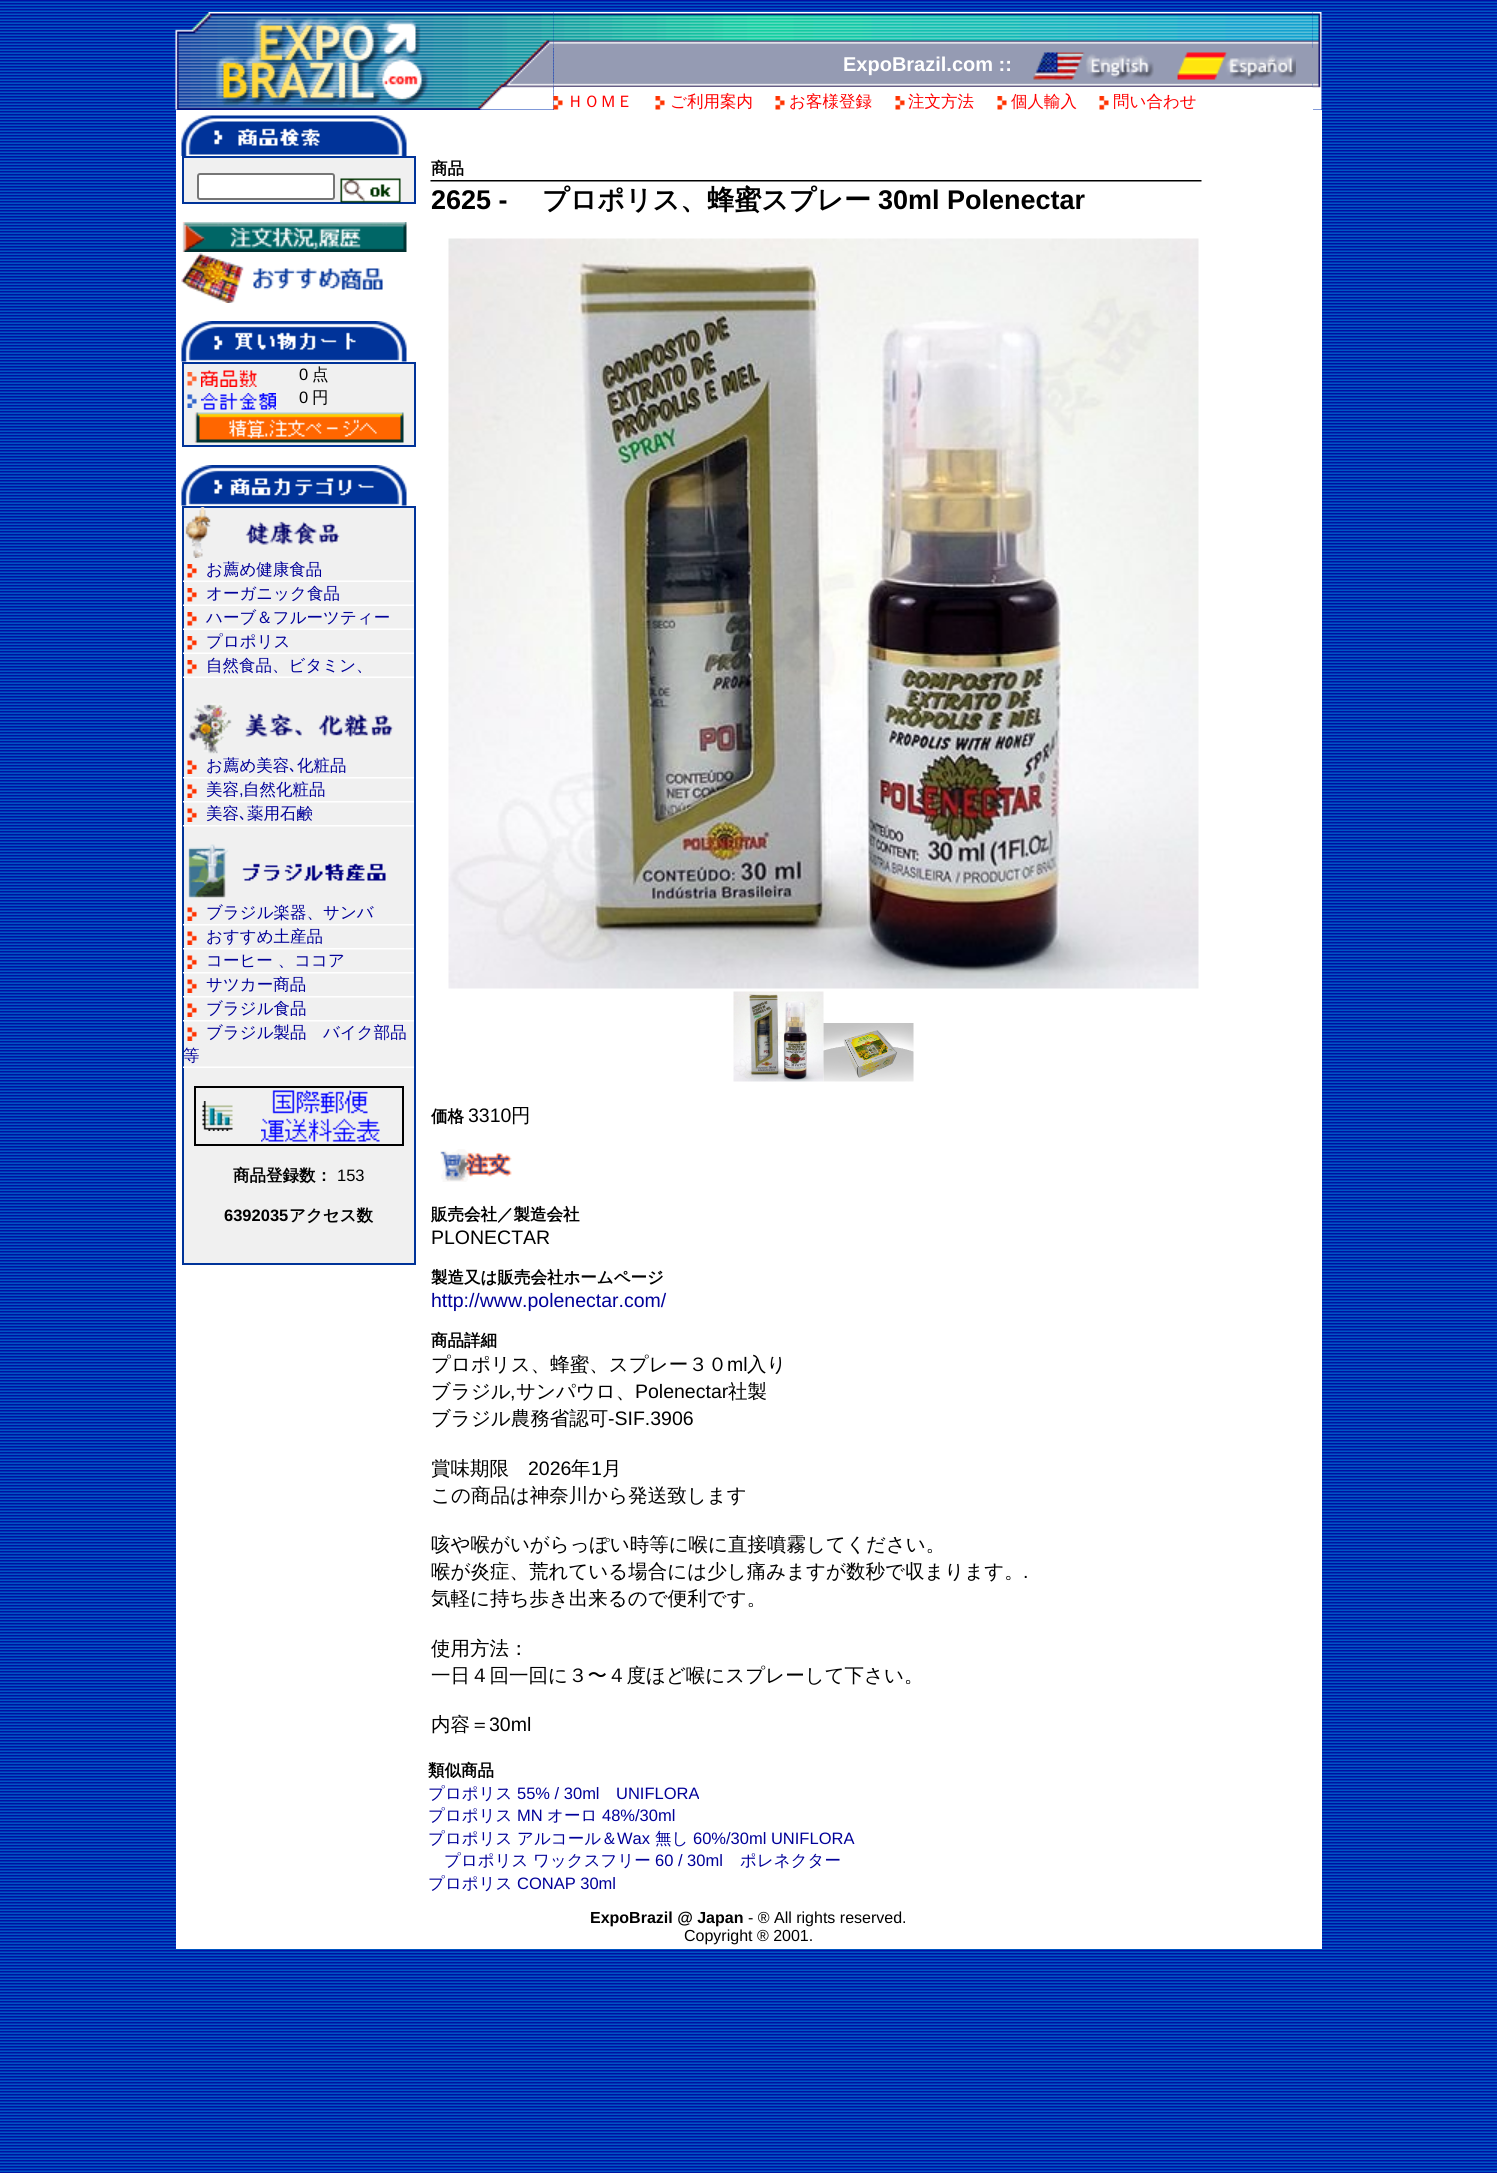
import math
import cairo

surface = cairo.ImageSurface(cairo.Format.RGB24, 1497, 2173)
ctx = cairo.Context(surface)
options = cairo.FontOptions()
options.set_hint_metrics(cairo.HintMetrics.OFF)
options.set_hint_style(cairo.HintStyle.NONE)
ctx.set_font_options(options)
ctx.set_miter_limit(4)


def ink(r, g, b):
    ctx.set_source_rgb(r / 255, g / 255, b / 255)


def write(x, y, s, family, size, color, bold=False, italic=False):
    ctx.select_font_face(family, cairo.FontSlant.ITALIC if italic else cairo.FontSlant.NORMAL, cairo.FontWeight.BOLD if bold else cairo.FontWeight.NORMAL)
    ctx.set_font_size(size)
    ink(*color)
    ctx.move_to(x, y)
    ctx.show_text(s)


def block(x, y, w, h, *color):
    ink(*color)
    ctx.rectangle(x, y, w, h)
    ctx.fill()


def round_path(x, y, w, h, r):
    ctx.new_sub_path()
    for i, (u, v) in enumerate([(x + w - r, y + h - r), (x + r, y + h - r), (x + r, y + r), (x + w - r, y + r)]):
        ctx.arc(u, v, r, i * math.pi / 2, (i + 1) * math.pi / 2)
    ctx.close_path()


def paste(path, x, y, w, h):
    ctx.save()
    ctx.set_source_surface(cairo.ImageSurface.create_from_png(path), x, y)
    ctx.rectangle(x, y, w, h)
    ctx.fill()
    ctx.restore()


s1 = dict(family="Liberation Sans", size=20, color=(255, 255, 255), bold=True)
s2 = dict(family="WenQuanYi Zen Hei Medium", size=16.5, color=(255, 0, 0))
s3 = dict(family="Liberation Sans", size=16.5, color=(0, 0, 0))
s4 = dict(family="WenQuanYi Zen Hei Medium", size=16.5, color=(0, 0, 0))
s5 = dict(family="WenQuanYi Zen Hei Medium", size=16.5, color=(0, 0, 153))
s6 = dict(family="IPAPGothic", size=16.5, color=(0, 0, 153))
s7 = dict(family="Liberation Sans", size=16.5, color=(0, 0, 153))
s8 = dict(family="WenQuanYi Zen Hei", size=16.5, color=(0, 0, 0), bold=True)
s9 = dict(family="Liberation Sans", size=16.5, color=(0, 0, 0), bold=True)
s10 = dict(family="Liberation Sans", size=27, color=(0, 0, 0), bold=True)
s11 = dict(family="WenQuanYi Zen Hei", size=27, color=(0, 0, 0), bold=True)
s12 = dict(family="Liberation Sans", size=19.5, color=(0, 0, 0))
s13 = dict(family="WenQuanYi Zen Hei Medium", size=19.5, color=(0, 0, 0))
s14 = dict(family="Liberation Sans", size=19.5, color=(0, 0, 153))
s15 = dict(family="Liberation Sans", size=16, color=(0, 0, 0), bold=True)
s16 = dict(family="Liberation Sans", size=16, color=(0, 0, 0))

ink(255, 255, 255)
ctx.paint()
paste("pic1.png", 0, 0, 1497, 2173)
paste("pic2.png", 175, 12, 379, 98)
paste("pic3.png", 553, 12, 760, 36)
block(554, 48, 759, 35, 149, 155, 179)
block(554, 87, 759, 23, 255, 255, 255)
paste("pic4.png", 1312, 12, 10, 98)
write(843, 71, "ExpoBrazil.com ::", **s1)
paste("pic5.png", 1033, 52, 121, 28)
paste("pic6.png", 1177, 52, 119, 28)
paste("pic7.png", 553, 82, 760, 5)
paste("pic8.png", 553, 96, 10, 14)
write(567, 107, "ＨＯＭＥ", **s2)
paste("pic9.png", 655, 96, 10, 14)
write(670, 107, "ご利用案内", **s2)
paste("pic9.png", 775, 96, 10, 14)
write(789, 107, "お客様登録", **s2)
paste("pic9.png", 895, 96, 10, 14)
write(908, 107, "注文方法", **s2)
paste("pic9.png", 997, 96, 10, 14)
write(1011, 107, "個人輸入", **s2)
paste("pic9.png", 1099, 96, 10, 14)
write(1113, 107, "問い合わせ", **s2)
block(176, 110, 1146, 1839, 255, 255, 255)
paste("pic10.png", 181, 115, 226, 41)
ink(240, 240, 240)
ctx.rectangle(183, 157, 232, 46)
ctx.fill_preserve()
ink(0, 51, 153)
ctx.stroke()
ink(255, 255, 255)
round_path(198, 174, 136, 25, 2)
ctx.fill_preserve()
ink(118, 118, 118)
ctx.stroke()
paste("pic11.png", 340, 178, 61, 25)
paste("pic12.png", 182, 222, 225, 30)
paste("pic13.png", 181, 253, 202, 50)
paste("pic14.png", 181, 321, 226, 41)
ink(240, 240, 240)
ctx.rectangle(183, 363, 232, 83)
ctx.fill_preserve()
ink(0, 51, 153)
ctx.stroke()
paste("pic15.png", 187, 372, 10, 14)
paste("pic16.png", 201, 370, 56, 17)
write(299, 380, "0", **s3)
write(312, 380, "点", **s4)
paste("pic17.png", 187, 394, 10, 14)
paste("pic18.png", 201, 393, 75, 17)
write(299, 403, "0", **s3)
write(312, 403, "円", **s4)
paste("pic19.png", 194, 412, 210, 31)
paste("pic20.png", 181, 465, 226, 41)
ink(240, 240, 240)
ctx.rectangle(183, 507, 232, 757)
ctx.fill_preserve()
ink(0, 51, 153)
ctx.stroke()
paste("pic21.png", 185, 507, 155, 51)
paste("pic22.png", 187, 564, 10, 14)
write(206, 575, "お薦め健康食品", **s5)
paste("pic23.png", 183, 580, 231, 2)
paste("pic22.png", 187, 588, 10, 14)
write(206, 599, "オーガニック食品", **s5)
paste("pic23.png", 183, 604, 231, 2)
paste("pic22.png", 187, 612, 10, 14)
write(206, 623, "ハーブ＆フルーツティー", **s5)
paste("pic23.png", 183, 628, 231, 2)
paste("pic22.png", 187, 636, 10, 14)
write(206, 647, "プロポリス", **s5)
paste("pic23.png", 183, 652, 231, 2)
paste("pic22.png", 187, 660, 10, 14)
write(206, 671, "自然食品、ビタミン、", **s5)
paste("pic23.png", 183, 676, 231, 2)
paste("pic24.png", 188, 703, 206, 51)
paste("pic25.png", 187, 760, 10, 14)
write(206, 771, "お薦め美容", **s5)
write(289, 771, "､", **s6)
write(297, 771, "化粧品", **s5)
paste("pic26.png", 183, 777, 231, 2)
paste("pic25.png", 187, 784, 10, 14)
write(206, 795, "美容", **s5)
write(239, 795, ",", **s7)
write(243, 795, "自然化粧品", **s5)
paste("pic26.png", 183, 801, 231, 2)
paste("pic25.png", 187, 808, 10, 14)
write(206, 819, "美容", **s5)
write(239, 819, "､", **s6)
write(247, 819, "薬用石鹸", **s5)
paste("pic26.png", 183, 825, 231, 2)
paste("pic27.png", 188, 844, 198, 54)
paste("pic25.png", 187, 907, 10, 14)
write(206, 918, "ブラジル楽器、サンバ", **s5)
paste("pic26.png", 183, 924, 231, 2)
paste("pic25.png", 187, 931, 10, 14)
write(206, 942, "おすすめ土産品", **s5)
paste("pic26.png", 183, 948, 231, 2)
paste("pic25.png", 187, 955, 10, 14)
write(206, 966, "コーヒー 、ココア", **s5)
paste("pic26.png", 183, 972, 231, 2)
paste("pic25.png", 187, 979, 10, 14)
write(206, 990, "サツカー商品", **s5)
paste("pic26.png", 183, 996, 231, 2)
paste("pic25.png", 187, 1003, 10, 14)
write(206, 1014, "ブラジル食品", **s5)
paste("pic26.png", 183, 1020, 231, 2)
paste("pic25.png", 187, 1027, 10, 14)
write(206, 1038, "ブラジル製品　バイク部品", **s5)
write(183, 1061, "等", **s5)
paste("pic23.png", 183, 1066, 231, 2)
ctx.rectangle(195, 1087, 208, 58)
ink(0, 0, 0)
ctx.stroke()
paste("pic28.png", 202, 1101, 31, 30)
paste("pic29.png", 261, 1090, 119, 52)
write(233, 1181, "商品登録数：", **s8)
write(337, 1181, "153", **s3)
write(224, 1221, "6392035", **s9)
write(289, 1221, "アクセス数", **s8)
write(431, 174, "商品", **s8)
paste("pic30.png", 430, 180, 772, 2)
write(431, 209, "2625 -", **s10)
write(542, 209, "プロポリス、蜂蜜スプレー", **s11)
write(878, 209, "30ml Polenectar", **s10)
paste("pic31.png", 448, 238, 751, 751)
paste("pic32.png", 733, 991, 91, 91)
paste("pic33.png", 823, 1023, 91, 59)
write(431, 1122, "価格", **s8)
write(468, 1122, "3310", **s12)
write(511, 1122, "円", **s13)
paste("pic34.png", 440, 1149, 72, 33)
write(431, 1220, "販売会社／製造会社", **s8)
write(431, 1244, "PLONECTAR", **s12)
write(431, 1283, "製造又は販売会社ホームページ", **s8)
write(431, 1307, "http://www.polenectar.com/", **s14)
write(431, 1346, "商品詳細", **s8)
write(431, 1371, "プロポリス、蜂蜜、スプレー３０", **s13)
write(727, 1371, "ml", **s12)
write(747, 1371, "入り", **s13)
write(431, 1398, "ブラジル", **s13)
write(510, 1398, ",", **s12)
write(516, 1398, "サンパウロ、", **s13)
write(635, 1398, "Polenectar", **s12)
write(728, 1398, "社製", **s13)
write(431, 1425, "ブラジル農務省認可", **s13)
write(608, 1425, "-SIF.3906", **s12)
write(431, 1475, "賞味期限", **s13)
write(528, 1475, "2026", **s12)
write(571, 1475, "年", **s13)
write(591, 1475, "1", **s12)
write(602, 1475, "月", **s13)
write(431, 1502, "この商品は神奈川から発送致します", **s13)
write(431, 1551, "咳や喉がいがらっぽい時等に喉に直接噴霧してください。", **s13)
write(431, 1578, "喉が炎症、荒れている場合には少し痛みますが数秒で収まります。", **s13)
write(1023, 1578, ".", **s12)
write(431, 1605, "気軽に持ち歩き出来るので便利です。", **s13)
write(431, 1655, "使用方法：", **s13)
write(431, 1682, "一日４回一回に３〜４度ほど喉にスプレーして下さい。", **s13)
write(431, 1731, "内容＝", **s13)
write(489, 1731, "30ml", **s12)
write(428, 1776, "類似商品", **s8)
write(428, 1799, "プロポリス", **s5)
write(517, 1799, "55% / 30ml", **s7)
write(616, 1799, "UNIFLORA", **s7)
write(428, 1821, "プロポリス", **s5)
write(517, 1821, "MN", **s7)
write(547, 1821, "オーロ", **s5)
write(602, 1821, "48%/30ml", **s7)
write(428, 1844, "プロポリス", **s5)
write(517, 1844, "アルコール＆", **s5)
write(617, 1844, "Wax", **s7)
write(655, 1844, "無し", **s5)
write(693, 1844, "60%/30ml UNIFLORA", **s7)
write(444, 1866, "プロポリス", **s5)
write(533, 1866, "ワックスフリー", **s5)
write(655, 1866, "60 / 30ml", **s7)
write(740, 1866, "ポレネクター", **s5)
write(428, 1889, "プロポリス", **s5)
write(517, 1889, "CONAP 30ml", **s7)
write(590, 1923, "ExpoBrazil @ Japan", **s15)
write(748, 1923, "- ® All rights reserved.", **s16)
write(684, 1941, "Copyright ® 2001.", **s16)
surface.write_to_png("screenshot.png")
